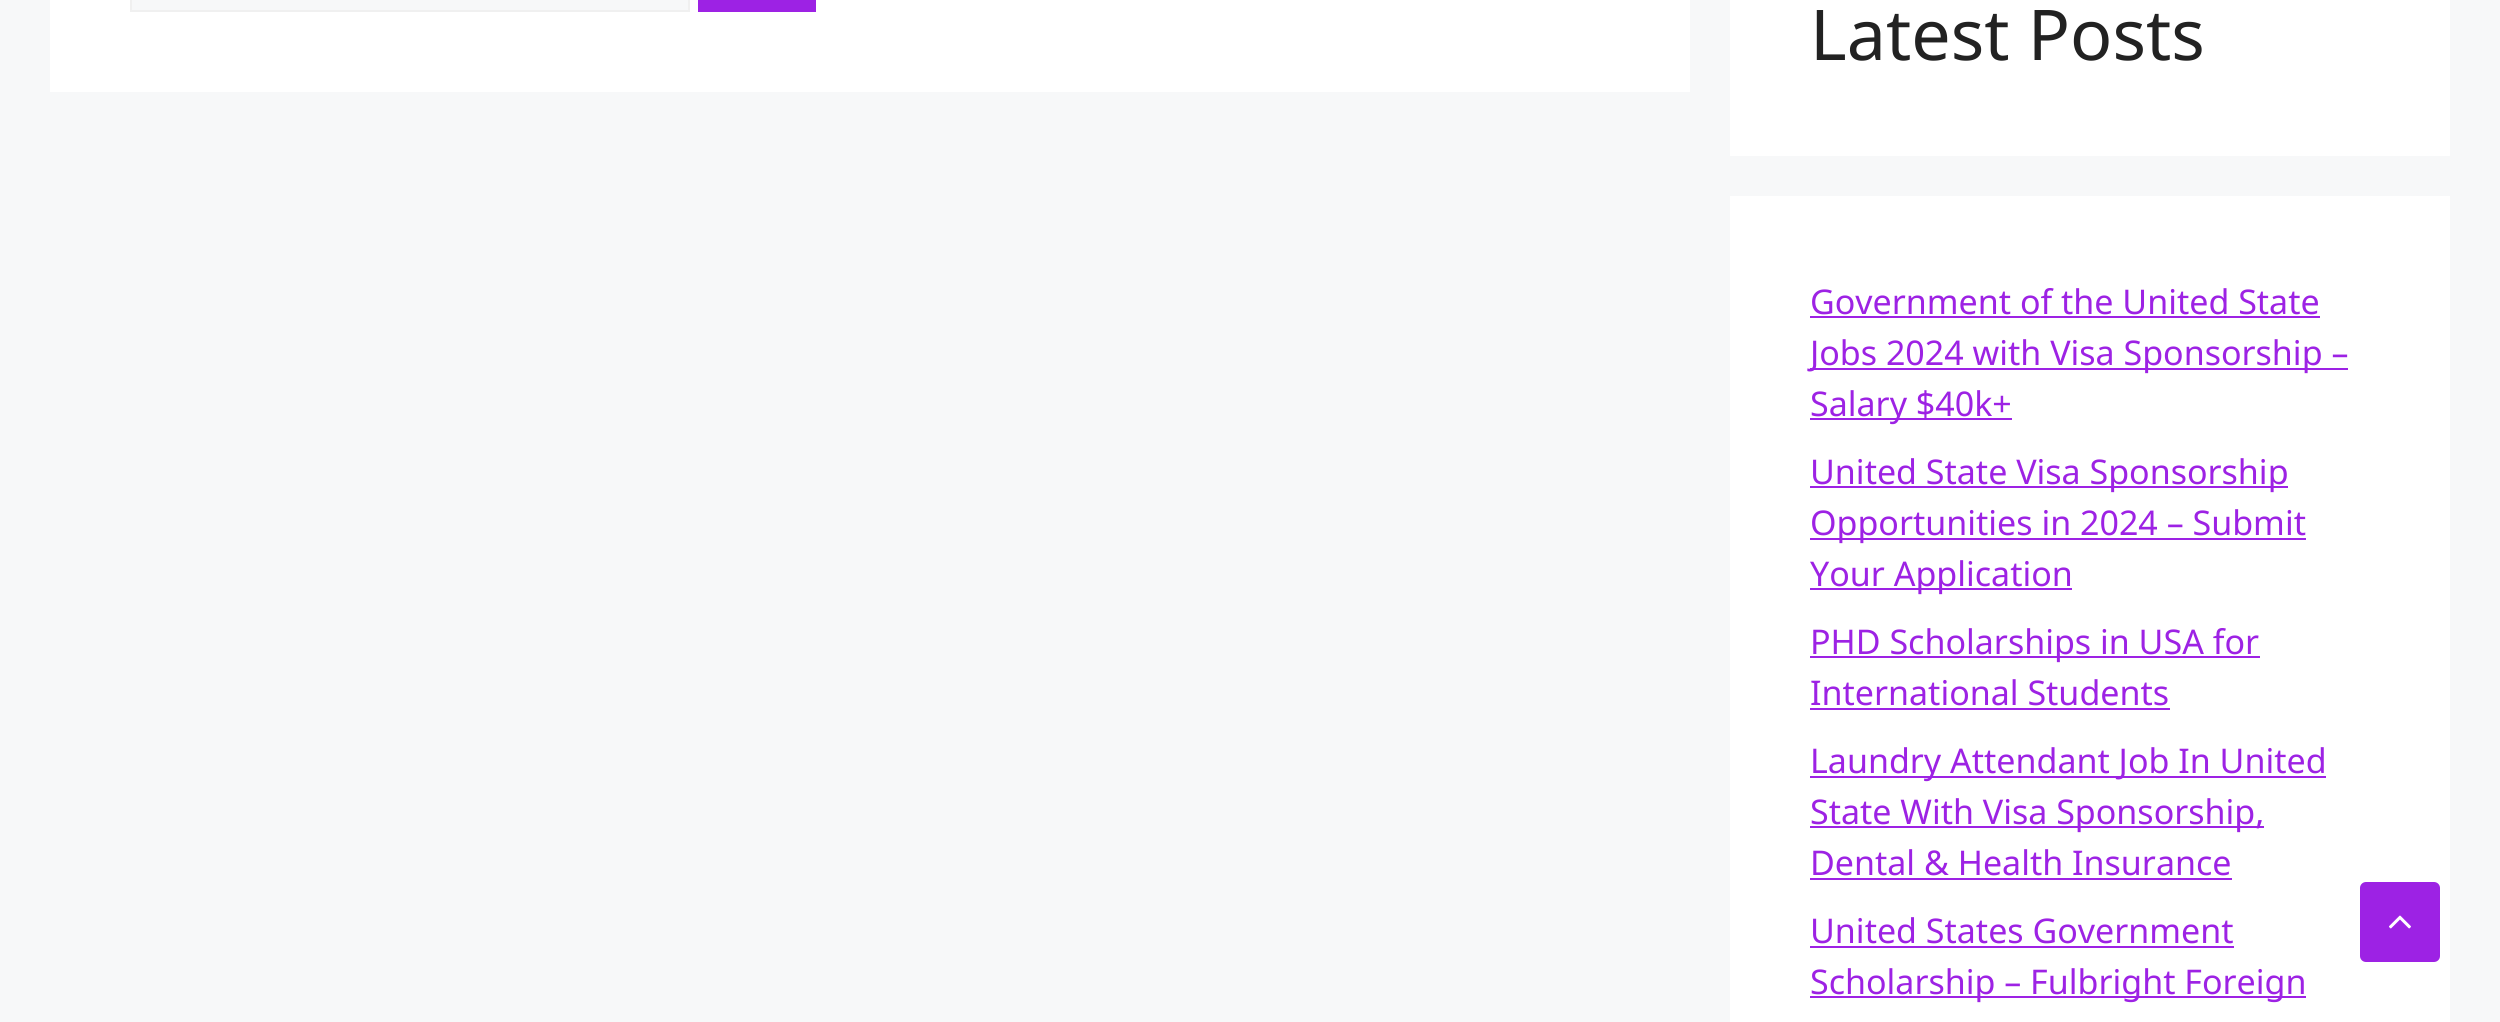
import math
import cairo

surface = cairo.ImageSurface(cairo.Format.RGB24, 2500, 1022)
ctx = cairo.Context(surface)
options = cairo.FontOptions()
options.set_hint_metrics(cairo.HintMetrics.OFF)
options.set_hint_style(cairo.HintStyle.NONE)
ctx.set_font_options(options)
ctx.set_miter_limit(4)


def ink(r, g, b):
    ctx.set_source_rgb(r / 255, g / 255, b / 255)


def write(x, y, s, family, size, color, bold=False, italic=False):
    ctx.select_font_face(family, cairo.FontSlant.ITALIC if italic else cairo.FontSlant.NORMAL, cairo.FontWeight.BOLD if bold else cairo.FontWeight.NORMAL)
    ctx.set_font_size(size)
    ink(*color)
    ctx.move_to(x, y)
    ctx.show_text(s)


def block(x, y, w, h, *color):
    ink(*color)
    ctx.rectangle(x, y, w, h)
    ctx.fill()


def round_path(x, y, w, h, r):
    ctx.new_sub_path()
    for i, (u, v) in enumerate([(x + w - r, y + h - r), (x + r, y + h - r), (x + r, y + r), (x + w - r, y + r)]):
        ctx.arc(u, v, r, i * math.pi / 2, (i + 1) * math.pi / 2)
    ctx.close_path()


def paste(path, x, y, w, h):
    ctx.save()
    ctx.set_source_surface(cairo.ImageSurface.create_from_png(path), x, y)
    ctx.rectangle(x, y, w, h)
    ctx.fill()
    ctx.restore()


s1 = dict(family="Noto Sans", size=70, color=(34, 34, 34))
s2 = dict(family="Noto Sans", size=34, color=(157, 34, 228))

ink(247, 248, 249)
ctx.paint()
block(50, 0, 1640, 92, 255, 255, 255)
ink(247, 248, 249)
ctx.rectangle(131, -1, 558, 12)
ctx.fill_preserve()
ink(240, 240, 240)
ctx.stroke()
block(698, 0, 118, 12, 157, 34, 228)
block(1730, 0, 720, 156, 255, 255, 255)
write(1810, 60, "Latest Posts", **s1)
block(1730, 196, 720, 826, 255, 255, 255)
write(1810, 314, "Government of the United State", **s2)
block(1810, 316, 510, 2, 157, 34, 228)
block(1810, 368, 538, 2, 157, 34, 228)
write(1810, 365, "Jobs 2024 with Visa Sponsorship –", **s2)
block(1810, 418, 202, 2, 157, 34, 228)
write(1810, 416, "Salary $40k+", **s2)
block(1810, 486, 478, 2, 157, 34, 228)
write(1810, 484, "United State Visa Sponsorship", **s2)
block(1810, 538, 496, 2, 157, 34, 228)
write(1810, 535, "Opportunities in 2024 – Submit", **s2)
block(1810, 588, 262, 2, 157, 34, 228)
write(1810, 586, "Your Application", **s2)
block(1810, 656, 450, 2, 157, 34, 228)
write(1810, 654, "PHD Scholarships in USA for", **s2)
write(1810, 705, "International Students", **s2)
block(1810, 708, 360, 2, 157, 34, 228)
block(1810, 776, 516, 2, 157, 34, 228)
write(1810, 773, "Laundry Attendant Job In United", **s2)
block(1810, 826, 454, 2, 157, 34, 228)
write(1810, 824, "State With Visa Sponsorship,", **s2)
write(1810, 875, "Dental & Health Insurance", **s2)
block(1810, 878, 422, 2, 157, 34, 228)
write(1810, 943, "United States Government", **s2)
block(1810, 946, 424, 2, 157, 34, 228)
block(1810, 996, 496, 2, 157, 34, 228)
write(1810, 994, "Scholarship – Fulbright Foreign", **s2)
round_path(2360, 882, 80, 80, 6)
ctx.fill()
paste("pic1.png", 2389, 915, 22, 14)
surface.write_to_png("screenshot.png")
